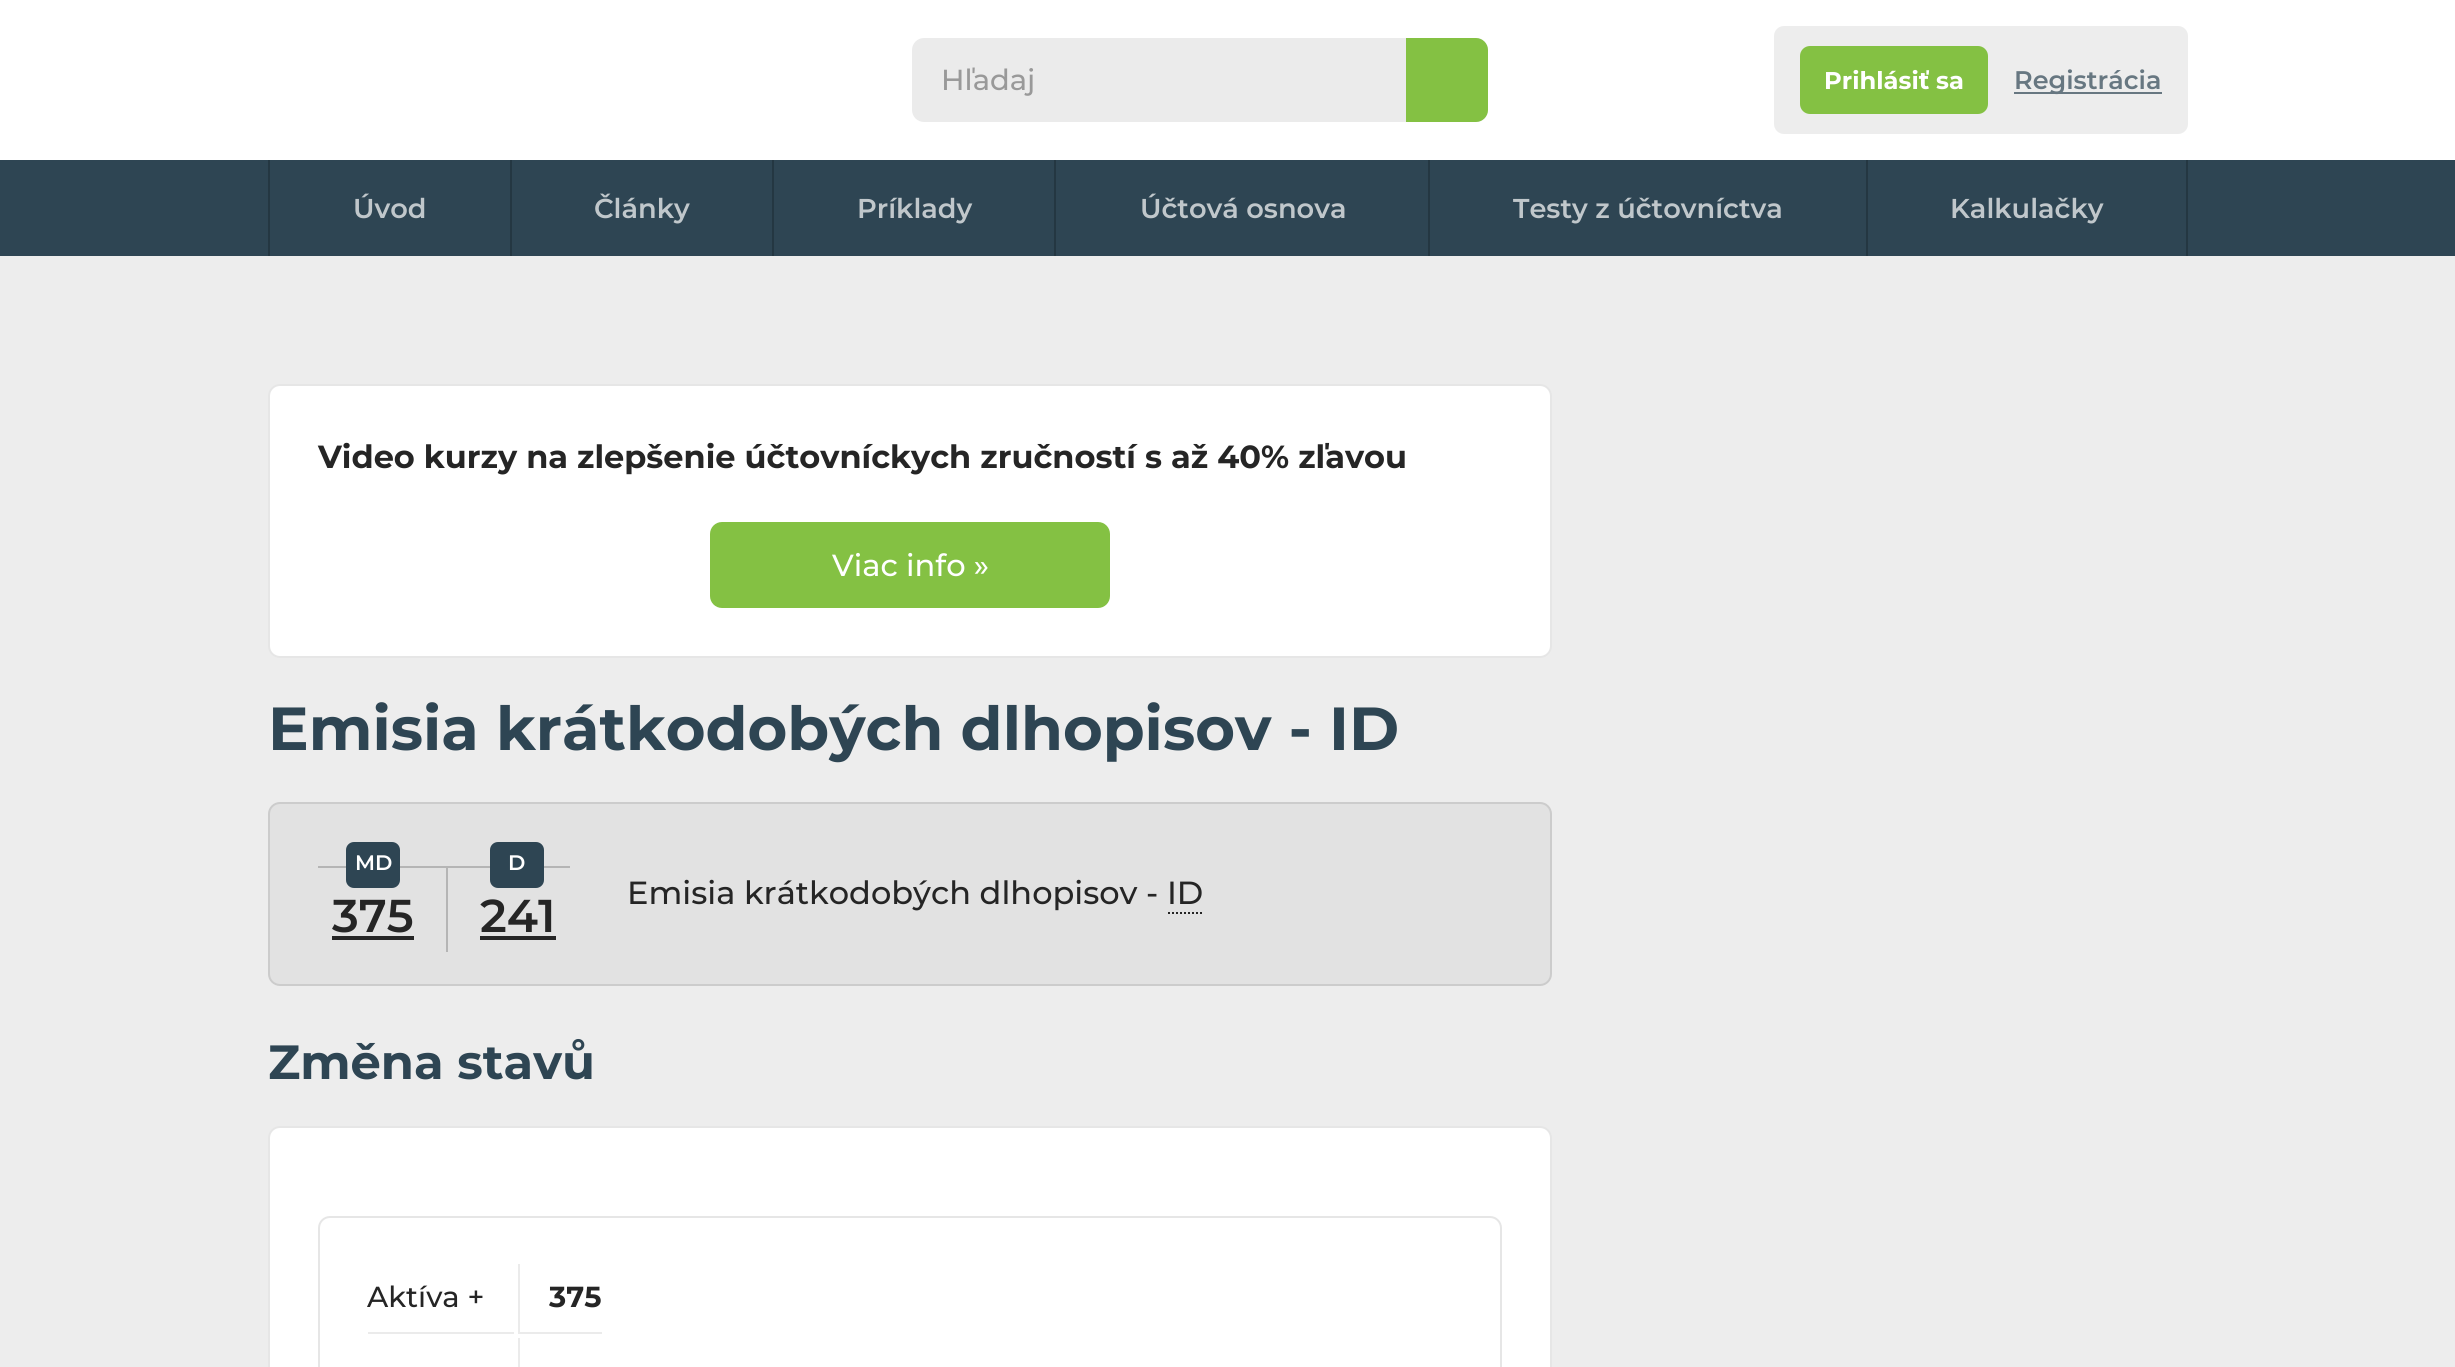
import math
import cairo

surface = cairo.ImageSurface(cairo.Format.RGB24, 2455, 1367)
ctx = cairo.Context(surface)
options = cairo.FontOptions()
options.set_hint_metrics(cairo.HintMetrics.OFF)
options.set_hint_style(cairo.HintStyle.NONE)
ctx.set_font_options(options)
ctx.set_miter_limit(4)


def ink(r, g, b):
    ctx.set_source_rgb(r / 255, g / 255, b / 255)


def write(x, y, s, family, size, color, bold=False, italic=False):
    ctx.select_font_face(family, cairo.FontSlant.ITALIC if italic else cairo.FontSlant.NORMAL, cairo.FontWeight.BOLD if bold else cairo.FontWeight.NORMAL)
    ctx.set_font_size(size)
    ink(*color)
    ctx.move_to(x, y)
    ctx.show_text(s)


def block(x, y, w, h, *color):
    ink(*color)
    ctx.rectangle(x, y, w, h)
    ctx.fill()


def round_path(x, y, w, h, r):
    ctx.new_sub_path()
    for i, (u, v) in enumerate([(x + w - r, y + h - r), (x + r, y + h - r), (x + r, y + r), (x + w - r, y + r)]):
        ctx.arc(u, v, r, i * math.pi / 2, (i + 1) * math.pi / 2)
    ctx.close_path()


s1 = dict(family="Montserrat Medium", size=29, color=(153, 153, 153))
s2 = dict(family="Montserrat", size=24.25, color=(255, 255, 255), bold=True)
s3 = dict(family="Montserrat SemiBold", size=25.5, color=(103, 119, 129))
s4 = dict(family="Montserrat SemiBold", size=27.25, color=(192, 199, 203))
s5 = dict(family="Montserrat", size=32, color=(37, 37, 37), bold=True)
s6 = dict(family="Montserrat Medium", size=30.5, color=(255, 255, 255))
s7 = dict(family="Montserrat", size=60.75, color=(46, 69, 83), bold=True)
s8 = dict(family="Montserrat SemiBold", size=21, color=(255, 255, 255))
s9 = dict(family="Montserrat SemiBold", size=46, color=(37, 37, 37))
s10 = dict(family="Montserrat Medium", size=32, color=(37, 37, 37))
s11 = dict(family="Montserrat", size=48, color=(46, 69, 83), bold=True)
s12 = dict(family="Montserrat Medium", size=29, color=(37, 37, 37))
s13 = dict(family="Montserrat", size=29, color=(37, 37, 37), bold=True)

ink(237, 237, 237)
ctx.paint()
block(0, 0, 2455, 160, 255, 255, 255)
ink(235, 235, 235)
round_path(912, 38, 576, 84, 12)
ctx.fill()
write(941, 90, "Hľadaj", **s1)
ink(132, 193, 67)
ctx.new_path()
ctx.move_to(1406, 38)
ctx.line_to(1476, 38)
ctx.curve_to(1482.5, 38, 1488, 43.5, 1488, 50)
ctx.line_to(1488, 110)
ctx.curve_to(1488, 116.5, 1482.5, 122, 1476, 122)
ctx.line_to(1406, 122)
ctx.close_path()
ctx.fill()
ink(237, 237, 237)
round_path(1774, 26, 414, 108, 10)
ctx.fill()
ink(132, 193, 67)
round_path(1800, 46, 188, 68, 10)
ctx.fill()
write(1824, 89, "Prihlásiť sa", **s2)
block(2014, 92, 148, 2, 103, 119, 129)
write(2014, 89, "Registrácia", **s3)
block(0, 160, 2455, 96, 46, 69, 83)
block(510, 160, 2, 96, 36, 55, 66)
block(268, 160, 2, 96, 36, 55, 66)
write(353, 218, "Úvod", **s4)
block(772, 160, 2, 96, 36, 55, 66)
write(594, 218, "Články", **s4)
block(1054, 160, 2, 96, 36, 55, 66)
write(857, 218, "Príklady", **s4)
block(1428, 160, 2, 96, 36, 55, 66)
write(1140, 218, "Účtová osnova", **s4)
block(1866, 160, 2, 96, 36, 55, 66)
write(1513, 218, "Testy z účtovníctva", **s4)
block(2186, 160, 2, 96, 36, 55, 66)
write(1950, 218, "Kalkulačky", **s4)
ink(255, 255, 255)
round_path(268, 384, 1284, 274, 12)
ctx.fill()
round_path(269, 385, 1282, 272, 11)
ctx.set_source_rgba(0, 0, 0, 0.1)
ctx.stroke()
write(318, 468, "Video kurzy na zlepšenie účtovníckych zručností s až 40% zľavou", **s5)
ink(132, 193, 67)
round_path(710, 522, 400, 86, 12)
ctx.fill()
write(832, 576, "Viac info »", **s6)
write(268, 750, "Emisia krátkodobých dlhopisov - ID", **s7)
ink(226, 226, 226)
round_path(268, 802, 1284, 184, 12)
ctx.fill()
round_path(269, 803, 1282, 182, 11)
ctx.set_source_rgba(0, 0, 0, 0.1)
ctx.stroke()
block(318, 866, 252, 2, 181, 181, 181)
block(446, 868, 2, 84, 181, 181, 181)
ink(46, 69, 83)
round_path(346, 842, 54, 46, 8)
ctx.fill()
write(355, 870, "MD", **s8)
write(332, 932, "375", **s9)
block(332, 936, 82, 4, 37, 37, 37)
ink(46, 69, 83)
round_path(490, 842, 54, 46, 8)
ctx.fill()
write(508, 870, "D", **s8)
write(480, 932, "241", **s9)
block(480, 936, 76, 4, 37, 37, 37)
write(627, 904, "Emisia krátkodobých dlhopisov - ID", **s10)
ctx.new_path()
ctx.move_to(1168, 913)
ctx.line_to(1204, 913)
ctx.set_dash([2, 2])
ctx.stroke()
write(268, 1079, "Změna stavů", **s11)
ink(255, 255, 255)
round_path(268, 1126, 1284, 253, 12)
ctx.fill()
round_path(269, 1127, 1282, 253, 11)
ctx.set_source_rgba(0, 0, 0, 0.1)
ctx.set_dash([])
ctx.stroke()
round_path(319, 1217, 1182, 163, 11)
ink(230, 230, 230)
ctx.stroke()
block(368, 1332, 146, 2, 235, 235, 235)
write(367, 1307, "Aktíva +", **s12)
ink(235, 235, 235)
ctx.new_path()
ctx.move_to(602, 1334)
ctx.line_to(518, 1334)
ctx.line_to(520, 1332)
ctx.line_to(602, 1332)
ctx.close_path()
ctx.fill()
ctx.set_source_rgba(0, 0, 0, 0.08)
ctx.new_path()
ctx.move_to(518, 1334)
ctx.line_to(518, 1264)
ctx.line_to(520, 1264)
ctx.line_to(520, 1332)
ctx.close_path()
ctx.fill()
write(549, 1307, "375", **s13)
block(518, 1338, 2, 29, 235, 235, 235)
surface.write_to_png("screenshot.png")
